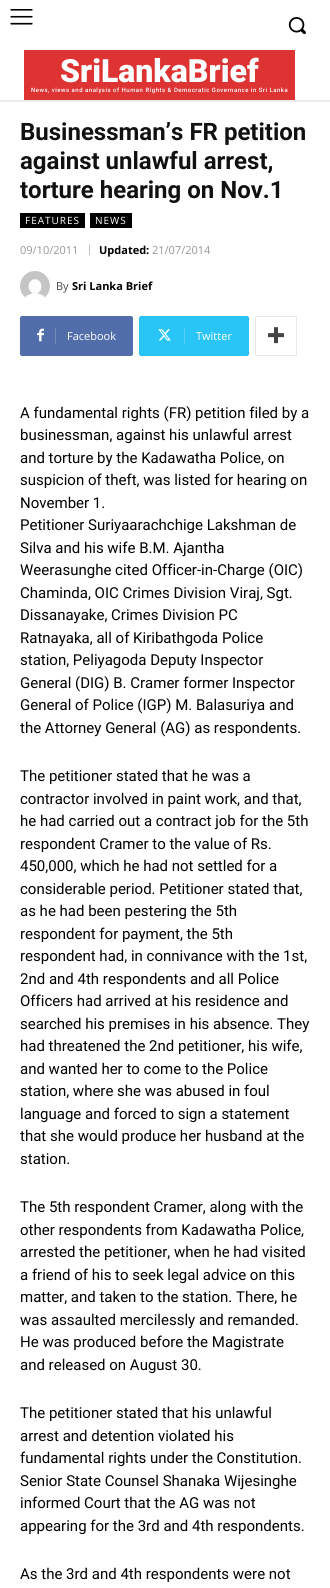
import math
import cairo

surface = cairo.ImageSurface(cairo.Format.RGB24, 330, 1588)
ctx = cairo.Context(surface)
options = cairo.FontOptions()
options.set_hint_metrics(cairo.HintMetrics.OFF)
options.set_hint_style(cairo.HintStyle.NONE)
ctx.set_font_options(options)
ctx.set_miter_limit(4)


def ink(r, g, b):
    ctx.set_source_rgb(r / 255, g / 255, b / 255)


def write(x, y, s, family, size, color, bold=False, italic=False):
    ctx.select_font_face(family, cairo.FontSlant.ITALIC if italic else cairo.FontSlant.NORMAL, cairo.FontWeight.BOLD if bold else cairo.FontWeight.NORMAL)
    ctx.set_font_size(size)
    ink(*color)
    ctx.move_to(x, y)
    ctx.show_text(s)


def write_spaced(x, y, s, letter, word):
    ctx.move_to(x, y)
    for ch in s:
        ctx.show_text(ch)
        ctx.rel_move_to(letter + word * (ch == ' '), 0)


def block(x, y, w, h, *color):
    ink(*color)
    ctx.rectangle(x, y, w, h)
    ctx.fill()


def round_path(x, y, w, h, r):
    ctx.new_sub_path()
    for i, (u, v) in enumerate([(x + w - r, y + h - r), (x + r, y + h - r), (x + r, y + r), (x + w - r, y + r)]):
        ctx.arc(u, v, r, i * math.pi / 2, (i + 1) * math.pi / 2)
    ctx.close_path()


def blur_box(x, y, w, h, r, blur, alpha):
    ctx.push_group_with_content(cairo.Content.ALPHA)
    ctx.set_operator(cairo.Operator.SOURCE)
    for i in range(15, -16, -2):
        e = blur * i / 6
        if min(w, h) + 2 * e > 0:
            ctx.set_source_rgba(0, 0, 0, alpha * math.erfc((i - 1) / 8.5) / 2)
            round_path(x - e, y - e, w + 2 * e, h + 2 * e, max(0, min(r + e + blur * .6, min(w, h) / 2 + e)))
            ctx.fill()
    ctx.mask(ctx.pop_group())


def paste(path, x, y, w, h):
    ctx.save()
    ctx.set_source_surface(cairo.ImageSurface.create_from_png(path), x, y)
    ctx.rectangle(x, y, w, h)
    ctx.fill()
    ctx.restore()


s1 = dict(family="Roboto Black", size=32, color=(255, 255, 255))
s2 = dict(family="Roboto", size=24, color=(17, 17, 17), bold=True)
s3 = dict(family="Open Sans", size=11, color=(150, 150, 150))
s4 = dict(family="Open Sans", size=11, color=(0, 0, 0), bold=True)
s5 = dict(family="Open Sans", size=11, color=(68, 68, 68))
s6 = dict(family="Open Sans", size=11, color=(255, 255, 255))
s7 = dict(family="Roboto", size=15, color=(0, 0, 0))

ink(255, 255, 255)
ctx.paint()
paste("pic1.png", 10, 9, 23, 16)
paste("pic2.png", 288, 17, 18, 18)
block(24, 50, 271, 50, 221, 51, 51)
ctx.save()
ctx.rectangle(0, 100, 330, 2)
ctx.clip()
ink(0, 0, 0)
blur_box(-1, 0, 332, 102, 0, 0.5, 0.08)
ctx.restore()
write(60, 82, "SriLankaBrief", **s1)
ctx.select_font_face("Roboto Medium")
ctx.set_font_size(6)
write_spaced(31, 92, "News, views and analysis of Human Rights & Democratic Governance in Sri Lanka", 0.5, 0)
write(20, 140, "Businessman’s FR petition", **s2)
write(20, 169, "against unlawful arrest,", **s2)
write(20, 198, "torture hearing on Nov.1", **s2)
block(20, 213, 65, 15, 0, 0, 0)
ctx.select_font_face("Open Sans")
ctx.set_font_size(10)
ink(255, 255, 255)
write_spaced(25, 224, "FEATURES", 1, 0)
block(90, 213, 42, 15, 0, 0, 0)
ink(255, 255, 255)
write_spaced(95, 224, "NEWS", 1, 0)
write(20, 254, "09/10/2011", **s3)
block(89, 244, 1, 11, 196, 196, 196)
write(99, 254, "Updated:", **s4)
write(152, 254, "21/07/2014", **s3)
paste("pic3.png", 20, 271, 30, 28)
write(56, 290, "By", **s5)
write(72, 290, "Sri Lanka Brief", **s4)
ink(81, 110, 171)
ctx.new_path()
ctx.move_to(55, 316)
ctx.line_to(131, 316)
ctx.curve_to(132, 316, 133, 317, 133, 318)
ctx.line_to(133, 354)
ctx.curve_to(133, 355, 132, 356, 131, 356)
ctx.line_to(55, 356)
ctx.close_path()
ctx.fill()
ctx.new_path()
ctx.move_to(22, 316)
ctx.line_to(61, 316)
ctx.line_to(61, 356)
ctx.line_to(22, 356)
ctx.curve_to(21, 356, 20, 355, 20, 354)
ctx.line_to(20, 318)
ctx.curve_to(20, 317, 21, 316, 22, 316)
ctx.close_path()
ctx.fill()
paste("pic4.png", 37, 328, 7, 14)
block(55, 328, 1, 16, 116, 139, 188)
write(67, 340, "Facebook", **s6)
ink(41, 197, 246)
ctx.new_path()
ctx.move_to(184, 316)
ctx.line_to(247, 316)
ctx.curve_to(248, 316, 249, 317, 249, 318)
ctx.line_to(249, 354)
ctx.curve_to(249, 355, 248, 356, 247, 356)
ctx.line_to(184, 356)
ctx.close_path()
ctx.fill()
ctx.new_path()
ctx.move_to(141, 316)
ctx.line_to(190, 316)
ctx.line_to(190, 356)
ctx.line_to(141, 356)
ctx.curve_to(140, 356, 139, 355, 139, 354)
ctx.line_to(139, 318)
ctx.curve_to(139, 317, 140, 316, 141, 316)
ctx.close_path()
ctx.fill()
paste("pic5.png", 158, 329, 13, 12)
block(184, 328, 1, 16, 84, 209, 248)
write(196, 340, "Twitter", **s6)
round_path(255.5, 316.5, 41, 39, 1.5)
ink(233, 233, 233)
ctx.set_line_width(1)
ctx.stroke()
paste("pic6.png", 268, 327, 16, 17)
write(20, 418, "A fundamental rights (FR) petition filed by a", **s7)
write(20, 440, "businessman, against his unlawful arrest", **s7)
write(20, 463, "and torture by the Kadawatha Police, on", **s7)
write(20, 485, "suspicion of theft, was listed for hearing on", **s7)
write(20, 508, "November 1.", **s7)
write(20, 530, "Petitioner Suriyaarachchige Lakshman de", **s7)
write(20, 553, "Silva and his wife B.M. Ajantha", **s7)
write(20, 575, "Weerasunghe cited Officer-in-Charge (OIC)", **s7)
write(20, 598, "Chaminda, OIC Crimes Division Viraj, Sgt.", **s7)
write(20, 620, "Dissanayake, Crimes Division PC", **s7)
write(20, 643, "Ratnayaka, all of Kiribathgoda Police", **s7)
write(20, 665, "station, Peliyagoda Deputy Inspector", **s7)
write(20, 688, "General (DIG) B. Cramer former Inspector", **s7)
write(20, 710, "General of Police (IGP) M. Balasuriya and", **s7)
write(20, 733, "the Attorney General (AG) as respondents.", **s7)
write(20, 781, "The petitioner stated that he was a", **s7)
write(20, 804, "contractor involved in paint work, and that,", **s7)
write(20, 826, "he had carried out a contract job for the 5th", **s7)
write(20, 849, "respondent Cramer to the value of Rs.", **s7)
write(20, 871, "450,000, which he had not settled for a", **s7)
write(20, 894, "considerable period. Petitioner stated that,", **s7)
write(20, 916, "as he had been pestering the 5th", **s7)
write(20, 939, "respondent for payment, the 5th", **s7)
write(20, 961, "respondent had, in connivance with the 1st,", **s7)
write(20, 984, "2nd and 4th respondents and all Police", **s7)
write(20, 1006, "Officers had arrived at his residence and", **s7)
write(20, 1029, "searched his premises in his absence. They", **s7)
write(20, 1051, "had threatened the 2nd petitioner, his wife,", **s7)
write(20, 1074, "and wanted her to come to the Police", **s7)
write(20, 1096, "station, where she was abused in foul", **s7)
write(20, 1119, "language and forced to sign a statement", **s7)
write(20, 1141, "that she would produce her husband at the", **s7)
write(20, 1164, "station.", **s7)
write(20, 1212, "The 5th respondent Cramer, along with the", **s7)
write(20, 1235, "other respondents from Kadawatha Police,", **s7)
write(20, 1257, "arrested the petitioner, when he had visited", **s7)
write(20, 1280, "a friend of his to seek legal advice on this", **s7)
write(20, 1302, "matter, and taken to the station. There, he", **s7)
write(20, 1325, "was assaulted mercilessly and remanded.", **s7)
write(20, 1347, "He was produced before the Magistrate", **s7)
write(20, 1370, "and released on August 30.", **s7)
write(20, 1418, "The petitioner stated that his unlawful", **s7)
write(20, 1441, "arrest and detention violated his", **s7)
write(20, 1463, "fundamental rights under the Constitution.", **s7)
write(20, 1486, "Senior State Counsel Shanaka Wijesinghe", **s7)
write(20, 1508, "informed Court that the AG was not", **s7)
write(20, 1531, "appearing for the 3rd and 4th respondents.", **s7)
write(20, 1579, "As the 3rd and 4th respondents were not", **s7)
surface.write_to_png("screenshot.png")
